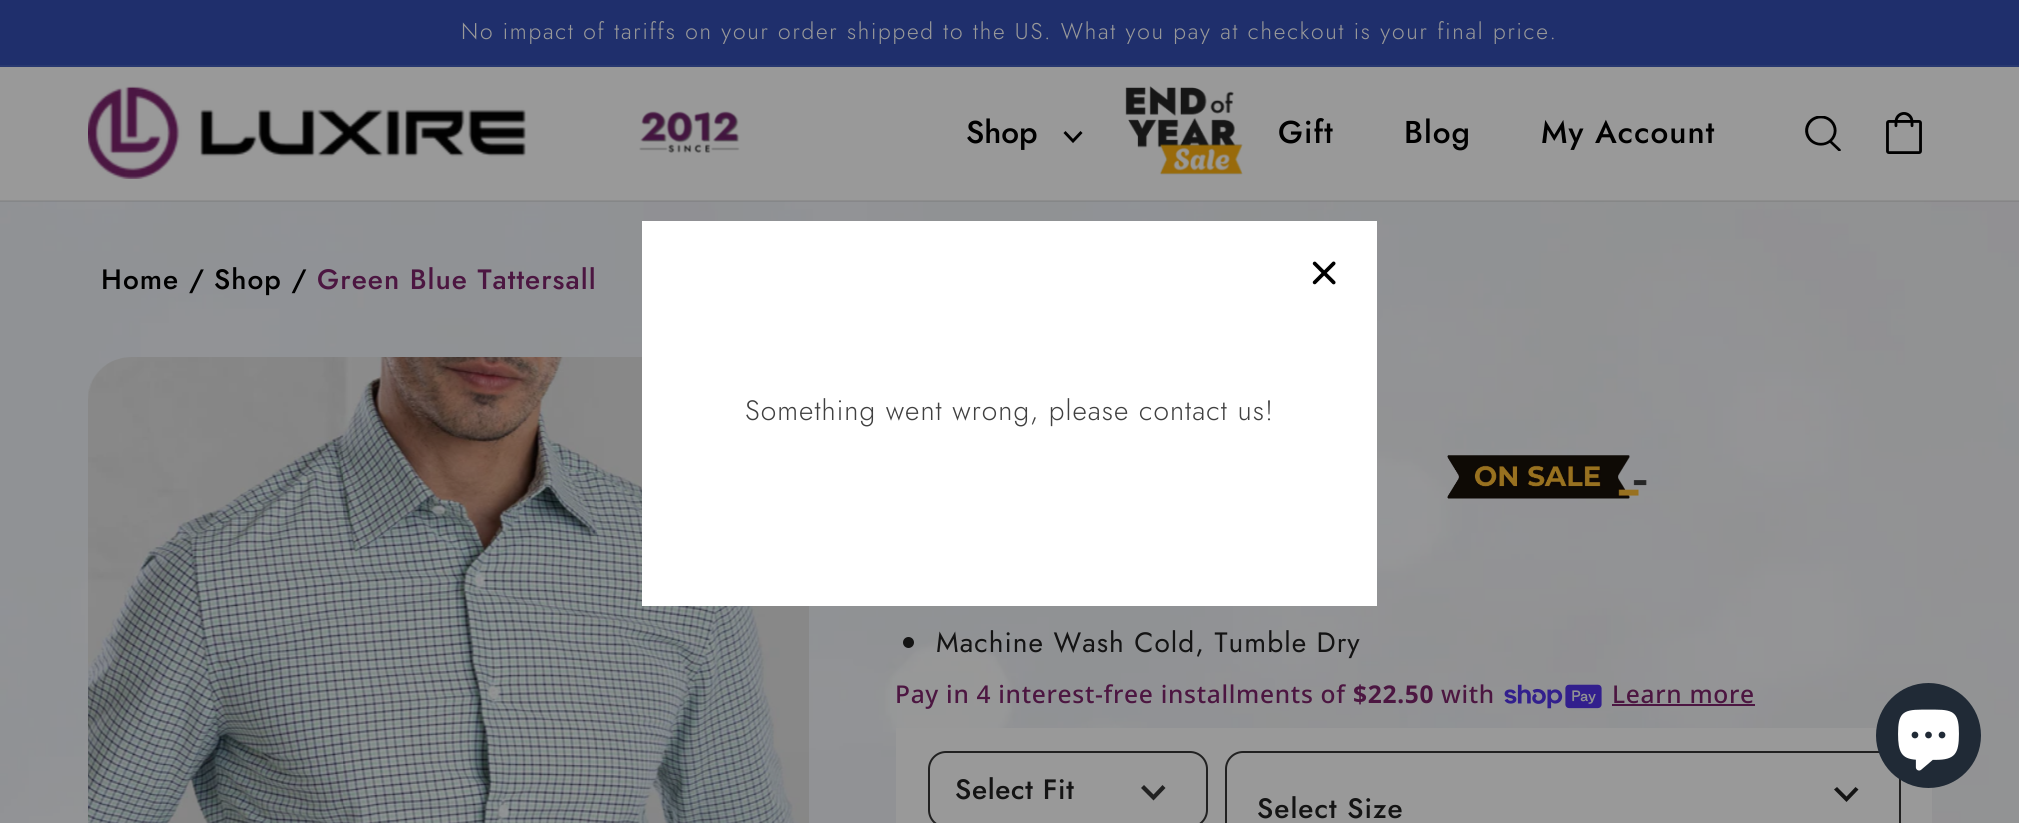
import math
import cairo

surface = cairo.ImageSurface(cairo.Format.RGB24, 2019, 823)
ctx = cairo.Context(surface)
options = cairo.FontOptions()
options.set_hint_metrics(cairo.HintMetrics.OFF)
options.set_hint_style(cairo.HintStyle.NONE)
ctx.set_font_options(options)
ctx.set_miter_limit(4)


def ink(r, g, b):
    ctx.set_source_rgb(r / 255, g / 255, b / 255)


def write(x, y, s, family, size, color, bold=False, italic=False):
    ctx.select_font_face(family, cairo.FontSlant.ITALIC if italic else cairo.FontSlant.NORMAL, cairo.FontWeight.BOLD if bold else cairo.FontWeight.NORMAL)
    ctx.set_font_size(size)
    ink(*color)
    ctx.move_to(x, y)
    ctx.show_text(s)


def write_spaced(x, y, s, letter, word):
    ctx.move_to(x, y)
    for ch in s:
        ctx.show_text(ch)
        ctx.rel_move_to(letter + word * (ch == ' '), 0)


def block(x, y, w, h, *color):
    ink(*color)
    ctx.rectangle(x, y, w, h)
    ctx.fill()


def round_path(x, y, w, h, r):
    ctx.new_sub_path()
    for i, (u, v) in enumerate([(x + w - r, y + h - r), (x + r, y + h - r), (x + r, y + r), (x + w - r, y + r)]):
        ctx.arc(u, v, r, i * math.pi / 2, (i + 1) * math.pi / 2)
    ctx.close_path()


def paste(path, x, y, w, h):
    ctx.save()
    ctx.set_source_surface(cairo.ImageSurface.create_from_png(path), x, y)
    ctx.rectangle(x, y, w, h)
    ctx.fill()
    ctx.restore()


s1 = dict(family="Jost Medium", size=31.5, color=(0, 0, 0))

ink(153, 153, 153)
ctx.paint()
paste("pic1.png", 0, 201, 2019, 622)
block(0, 0, 2019, 65, 31, 47, 108)
block(0, 65, 2019, 2, 40, 56, 112)
ctx.select_font_face("Jost Light")
ctx.set_font_size(22.75)
ink(153, 153, 153)
write_spaced(461, 39, "No impact of tariffs on your order shipped to the US. What you pay at checkout is your final price.", 1.75, 0)
ctx.set_source_rgba(0, 0, 0, 0.08)
ctx.rectangle(0, 200, 2019, 2)
ctx.fill()
paste("pic2.png", 88, 86, 438, 93)
paste("pic3.png", 639, 111, 101, 42)
write(966, 143, "Shop", **s1)
ctx.new_path()
ctx.move_to(1073, 141)
ctx.line_to(1064.5, 132)
ctx.line_to(1073, 141)
ctx.line_to(1081.5, 132)
ctx.set_line_width(2.9)
ctx.stroke()
paste("pic4.png", 1125, 86, 118, 89)
write_spaced(1278, 143, "Gift", 1.05, 0)
write_spaced(1404, 143, "Blog", 1.05, 0)
write_spaced(1541, 143, "My Account", 1.05, 0)
paste("pic5.png", 1805, 116, 36, 35)
paste("pic6.png", 1886, 112, 36, 42)
ctx.set_font_size(28)
write_spaced(101, 289, "Home /", 1.05, 0)
write_spaced(214, 289, "Shop /", 1.05, 0)
ink(76, 22, 65)
write_spaced(317, 289, "Green Blue Tattersall", 1.05, 0)
paste("pic7.png", 88, 357, 721, 466)
paste("pic8.png", 1447, 455, 200, 44)
ink(20, 20, 20)
ctx.arc(908.5, 642.5, 5.5, 0, 2 * math.pi)
ctx.fill()
ctx.select_font_face("Jost")
write_spaced(936, 652, "Machine Wash Cold, Tumble Dry", 1.05, 0)
ctx.select_font_face("Noto Sans Medium")
ctx.set_font_size(24.5)
ink(76, 22, 65)
write_spaced(895, 703, "Pay in 4 interest-free installments of", 0.7, 0)
ctx.select_font_face("Noto Sans", cairo.FontSlant.NORMAL, cairo.FontWeight.BOLD)
write_spaced(1353, 703, "$22.50", 0.7, 0)
ctx.select_font_face("Noto Sans Medium")
write_spaced(1441, 703, "with", 0.7, 0)
paste("pic9.png", 1504, 684, 98, 25)
write_spaced(1612, 703, "Learn more", 0.7, 0)
block(1612, 704, 143, 2, 76, 22, 66)
block(896, 728, 1036, 95, 153, 153, 153)
round_path(929, 752, 278, 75, 17)
ink(33, 33, 33)
ctx.set_line_width(2)
ctx.stroke()
ctx.select_font_face("Jost Medium")
ctx.set_font_size(28)
ink(20, 20, 20)
write_spaced(955, 799, "Select Fit", 0.7, 0)
ink(33, 33, 33)
ctx.new_path()
ctx.move_to(1141, 788)
ctx.line_to(1144, 785)
ctx.line_to(1153.5, 794.5)
ctx.line_to(1162.5, 785)
ctx.line_to(1165.5, 788)
ctx.line_to(1153.5, 800.5)
ctx.close_path()
ctx.fill()
round_path(1226, 752, 674, 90, 17)
ctx.stroke()
ink(20, 20, 20)
ctx.new_path()
ctx.move_to(1834, 789.5)
ctx.line_to(1837, 787)
ctx.line_to(1846.5, 796.5)
ctx.line_to(1855.5, 787)
ctx.line_to(1858.5, 789.5)
ctx.line_to(1846.5, 802)
ctx.close_path()
ctx.fill()
write_spaced(1257, 818, "Select Size", 1.05, 0)
block(642, 221, 735, 385, 255, 255, 255)
paste("pic10.png", 1312, 261, 24, 24)
ctx.select_font_face("Jost Light")
ink(64, 64, 64)
write_spaced(745, 420, "Something went wrong, please contact us!", 1.05, 0)
ink(32, 42, 54)
ctx.new_path()
ctx.arc(1928.5, 735.5, 52.5, 0, 2 * math.pi)
ctx.fill()
paste("pic11.png", 1898, 709, 61, 62)
surface.write_to_png("screenshot.png")
